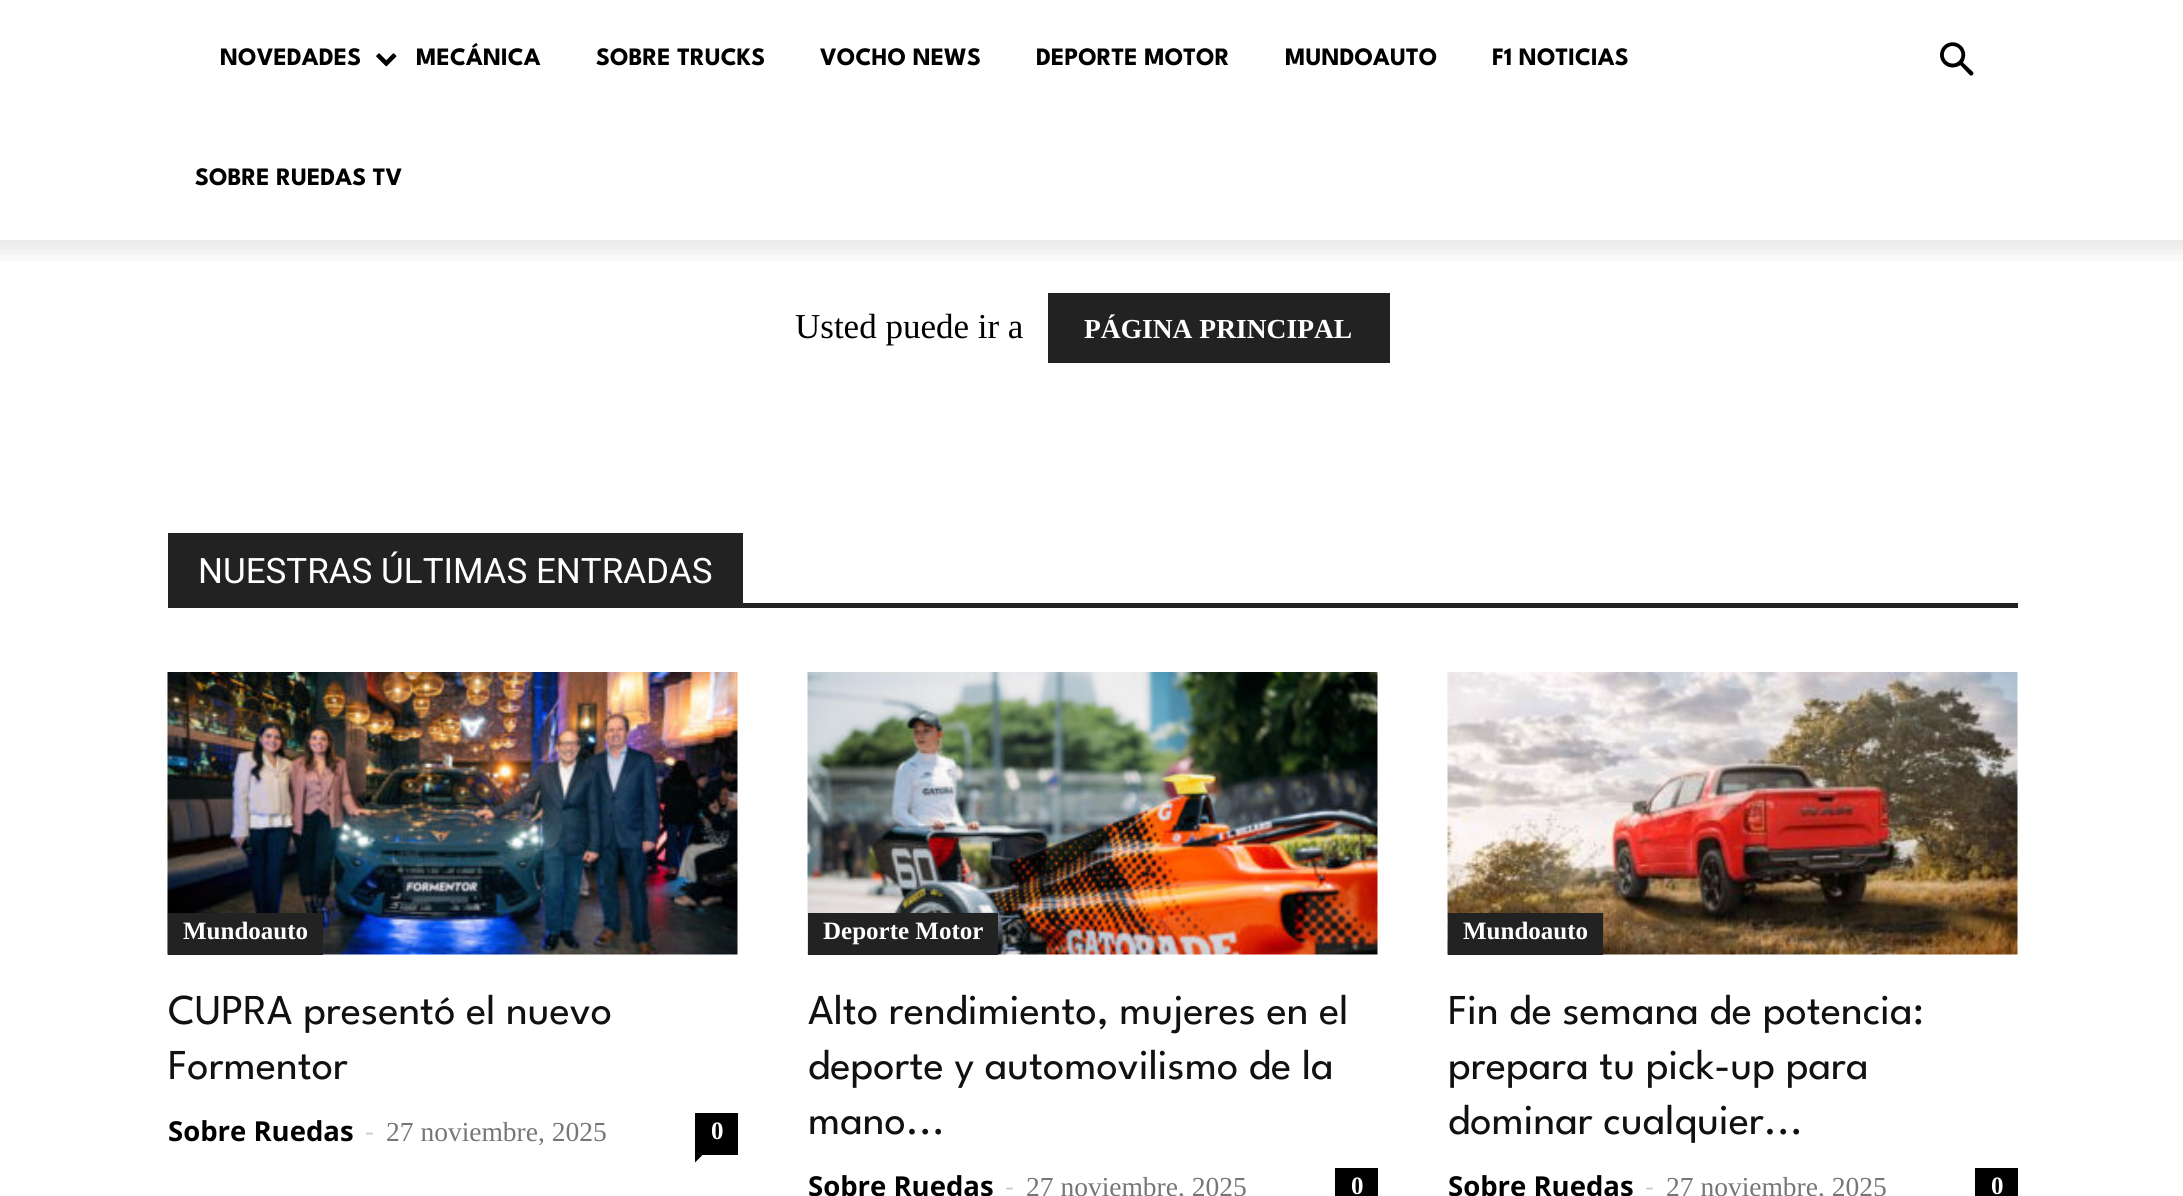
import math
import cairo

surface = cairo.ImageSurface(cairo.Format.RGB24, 2183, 1196)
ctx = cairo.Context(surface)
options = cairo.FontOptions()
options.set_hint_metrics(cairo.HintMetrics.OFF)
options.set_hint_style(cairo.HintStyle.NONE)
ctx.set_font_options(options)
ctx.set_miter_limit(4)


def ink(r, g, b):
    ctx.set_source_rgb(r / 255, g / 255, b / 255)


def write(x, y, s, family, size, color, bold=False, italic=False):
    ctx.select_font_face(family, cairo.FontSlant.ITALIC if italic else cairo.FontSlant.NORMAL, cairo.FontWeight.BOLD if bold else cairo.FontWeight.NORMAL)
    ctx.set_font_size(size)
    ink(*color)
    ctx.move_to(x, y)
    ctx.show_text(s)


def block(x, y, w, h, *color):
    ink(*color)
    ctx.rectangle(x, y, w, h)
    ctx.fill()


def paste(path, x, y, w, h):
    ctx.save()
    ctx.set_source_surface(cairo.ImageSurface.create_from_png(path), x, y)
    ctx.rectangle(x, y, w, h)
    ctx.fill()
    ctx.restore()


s1 = dict(family="League Spartan", size=25, color=(0, 0, 0), bold=True)
s2 = dict(family="Liberation Serif", size=35, color=(0, 0, 0))
s3 = dict(family="Liberation Serif", size=27.5, color=(255, 255, 255), bold=True)
s4 = dict(family="Roboto", size=35, color=(255, 255, 255))
s5 = dict(family="Liberation Serif", size=25, color=(255, 255, 255), bold=True)
s6 = dict(family="League Spartan", size=42.5, color=(17, 17, 17))
s7 = dict(family="Open Sans", size=27.5, color=(0, 0, 0), bold=True)
s8 = dict(family="Open Sans", size=27.5, color=(204, 204, 204))
s9 = dict(family="Liberation Serif", size=27.5, color=(118, 118, 118))

ink(255, 255, 255)
ctx.paint()
write(220, 65, "NOVEDADES", **s1)
paste("pic1.png", 376, 53, 21, 14)
write(416, 65, "MECÁNICA", **s1)
write(596, 65, "SOBRE TRUCKS", **s1)
write(820, 65, "VOCHO NEWS", **s1)
write(1036, 65, "DEPORTE MOTOR", **s1)
write(1285, 65, "MUNDOAUTO", **s1)
write(1492, 65, "F1 NOTICIAS", **s1)
write(195, 185, "SOBRE RUEDAS TV", **s1)
paste("pic2.png", 1940, 42, 34, 34)
paste("pic3.png", 0, 240, 2183, 21)
write(795, 338, "Usted puede ir a", **s2)
block(1048, 293, 342, 70, 34, 34, 34)
write(1084, 338, "PÁGINA PRINCIPAL", **s3)
block(168, 603, 1850, 5, 34, 34, 34)
block(168, 533, 575, 70, 34, 34, 34)
write(198, 583, "NUESTRAS ÚLTIMAS ENTRADAS", **s4)
paste("pic4.png", 167, 672, 571, 283)
block(168, 913, 155, 42, 34, 34, 34)
write(183, 939, "Mundoauto", **s5)
write(168, 1024, "CUPRA presentó el nuevo", **s6)
write(168, 1079, "Formentor", **s6)
write(168, 1141, "Sobre Ruedas", **s7)
write(365, 1141, "-", **s8)
write(386, 1141, "27 noviembre, 2025", **s9)
block(695, 1113, 43, 42, 0, 0, 0)
write(711, 1139, "0", **s5)
ink(0, 0, 0)
ctx.new_path()
ctx.move_to(695, 1155)
ctx.line_to(702.5, 1155)
ctx.line_to(695, 1162.5)
ctx.close_path()
ctx.fill()
paste("pic5.png", 807, 672, 571, 283)
block(808, 913, 190, 42, 34, 34, 34)
write(823, 939, "Deporte Motor", **s5)
write(808, 1024, "Alto rendimiento, mujeres en el", **s6)
write(808, 1079, "deporte y automovilismo de la", **s6)
write(808, 1134, "mano...", **s6)
write(808, 1196, "Sobre Ruedas", **s7)
write(1005, 1196, "-", **s8)
write(1026, 1196, "27 noviembre, 2025", **s9)
block(1335, 1168, 43, 28, 0, 0, 0)
write(1351, 1194, "0", **s5)
paste("pic6.png", 1447, 672, 571, 283)
block(1448, 913, 155, 42, 34, 34, 34)
write(1463, 939, "Mundoauto", **s5)
write(1448, 1024, "Fin de semana de potencia:", **s6)
write(1448, 1079, "prepara tu pick-up para", **s6)
write(1448, 1134, "dominar cualquier...", **s6)
write(1448, 1196, "Sobre Ruedas", **s7)
write(1645, 1196, "-", **s8)
write(1666, 1196, "27 noviembre, 2025", **s9)
block(1975, 1168, 43, 28, 0, 0, 0)
write(1991, 1194, "0", **s5)
surface.write_to_png("screenshot.png")
